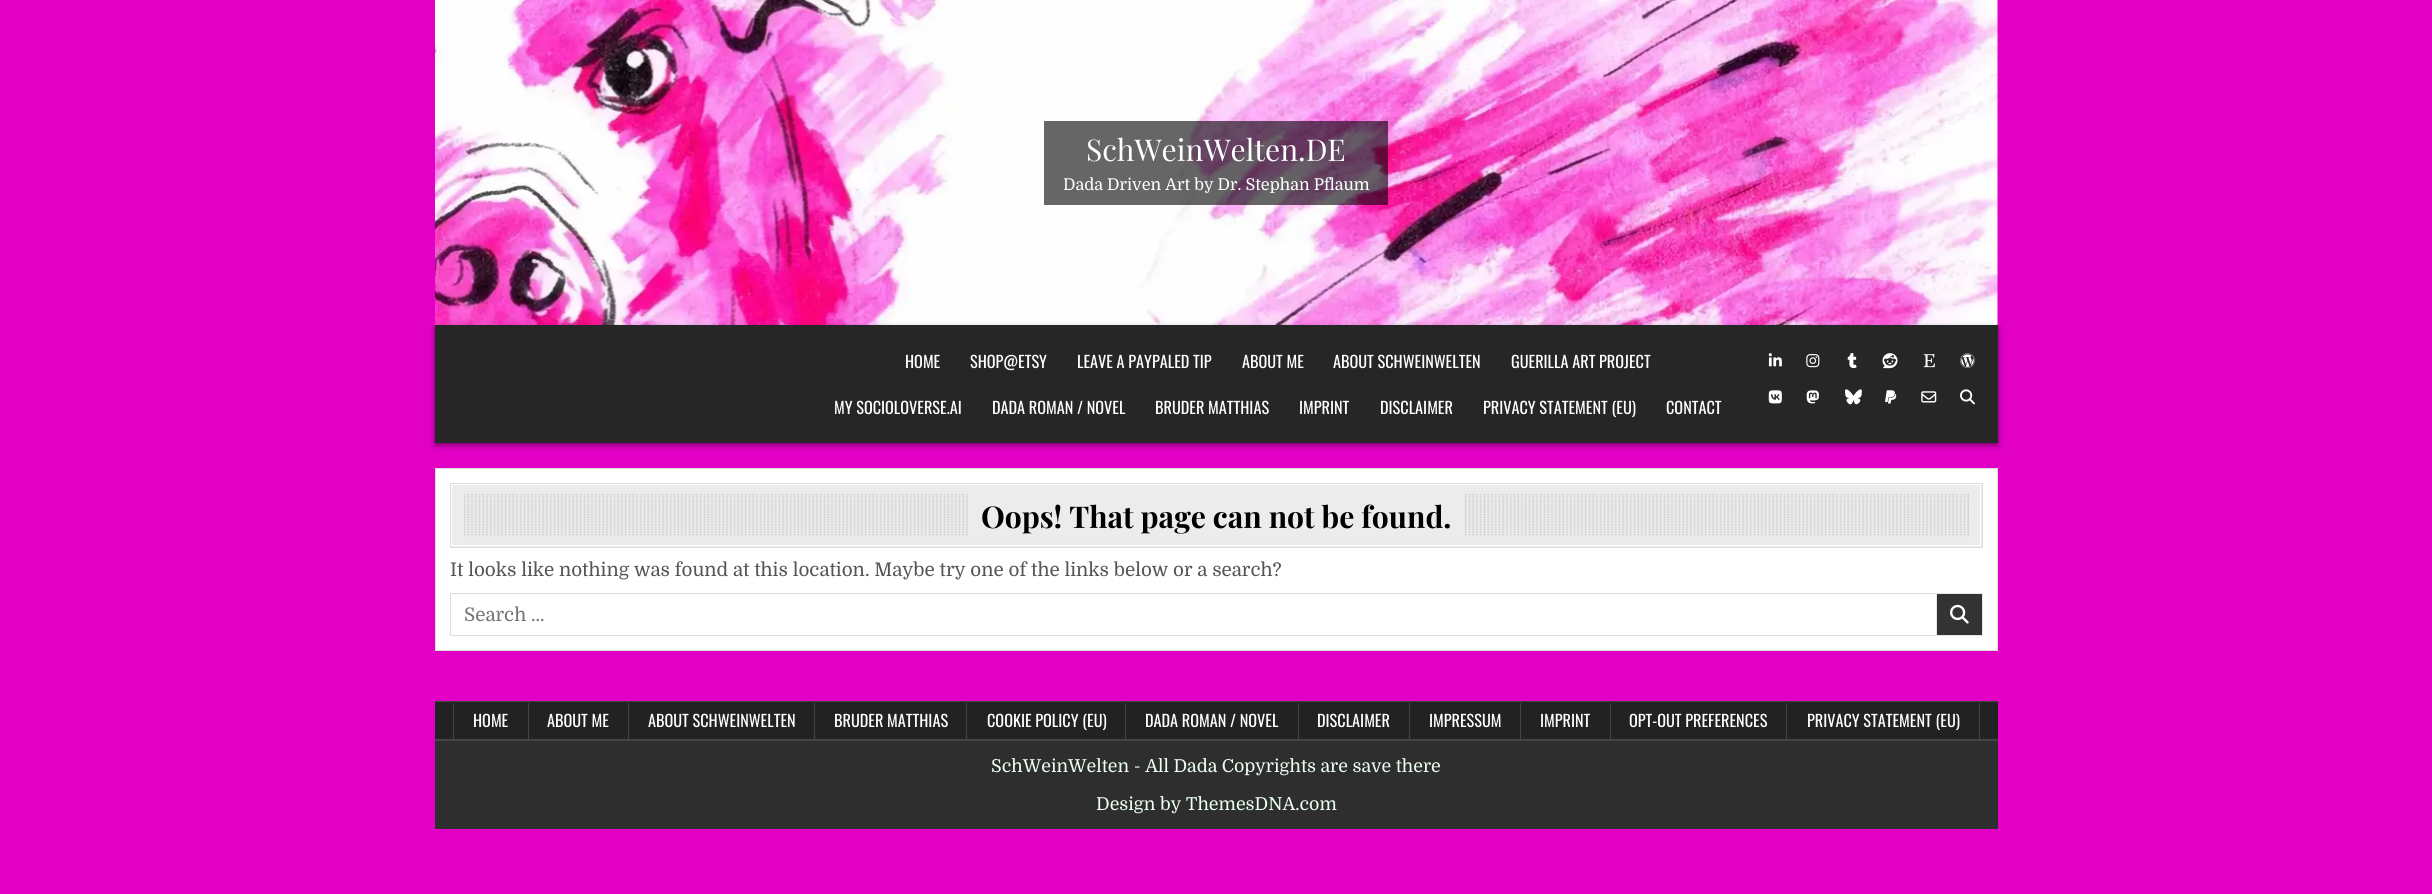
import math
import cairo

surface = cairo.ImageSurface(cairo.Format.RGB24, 2432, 894)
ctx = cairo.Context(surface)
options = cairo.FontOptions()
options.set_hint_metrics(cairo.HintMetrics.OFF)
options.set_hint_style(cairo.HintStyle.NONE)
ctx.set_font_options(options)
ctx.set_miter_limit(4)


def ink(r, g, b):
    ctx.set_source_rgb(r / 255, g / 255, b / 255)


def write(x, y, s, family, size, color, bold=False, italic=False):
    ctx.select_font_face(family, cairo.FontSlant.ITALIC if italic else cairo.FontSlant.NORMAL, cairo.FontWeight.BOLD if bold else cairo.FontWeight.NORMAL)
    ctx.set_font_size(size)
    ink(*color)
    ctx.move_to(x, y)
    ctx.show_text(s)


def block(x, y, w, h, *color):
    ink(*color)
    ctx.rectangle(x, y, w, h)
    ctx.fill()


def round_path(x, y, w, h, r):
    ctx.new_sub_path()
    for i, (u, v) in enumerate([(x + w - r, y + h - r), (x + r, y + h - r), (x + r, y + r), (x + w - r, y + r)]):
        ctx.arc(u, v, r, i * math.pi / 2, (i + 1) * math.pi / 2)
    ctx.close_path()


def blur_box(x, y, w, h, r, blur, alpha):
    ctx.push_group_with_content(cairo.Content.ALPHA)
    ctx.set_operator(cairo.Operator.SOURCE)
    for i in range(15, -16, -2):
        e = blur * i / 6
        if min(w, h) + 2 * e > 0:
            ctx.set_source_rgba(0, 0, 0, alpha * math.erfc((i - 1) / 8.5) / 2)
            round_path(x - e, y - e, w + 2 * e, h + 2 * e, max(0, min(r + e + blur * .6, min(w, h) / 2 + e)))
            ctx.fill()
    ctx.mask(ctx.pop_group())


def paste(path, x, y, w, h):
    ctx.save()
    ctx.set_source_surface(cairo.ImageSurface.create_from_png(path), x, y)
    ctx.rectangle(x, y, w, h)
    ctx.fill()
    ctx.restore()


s1 = dict(family="Playfair Display", size=30, color=(255, 255, 255))
s2 = dict(family="Domine", size=16.25, color=(255, 255, 255))
s3 = dict(family="Oswald", size=16.25, color=(255, 255, 255))
s4 = dict(family="Playfair Display", size=30, color=(0, 0, 0), bold=True)
s5 = dict(family="Domine", size=18.75, color=(85, 85, 85))
s6 = dict(family="Domine", size=18.75, color=(117, 117, 117))
s7 = dict(family="Domine", size=17.8, color=(236, 255, 241))

ink(226, 0, 196)
ctx.paint()
paste("pic1.png", 435, 0, 1563, 325)
ctx.set_source_rgba(0, 0, 0, 0.6)
ctx.rectangle(1044, 121, 344, 84)
ctx.fill()
write(1086, 161, "SchWeinWelten.DE", **s1)
write(1063, 190, "Dada Driven Art by Dr. Stephan Pflaum", **s2)
ink(0, 0, 0)
blur_box(435, 328, 1563, 117, 0, 3, 0.5)
block(435, 325, 1563, 118, 38, 38, 38)
write(905, 368, "HOME", **s3)
write(970, 368, "SHOP@ETSY", **s3)
write(1077, 368, "LEAVE A PAYPALED TIP", **s3)
write(1242, 368, "ABOUT ME", **s3)
write(1333, 368, "ABOUT SCHWEINWELTEN", **s3)
write(1511, 368, "GUERILLA ART PROJECT", **s3)
write(834, 414, "MY SOCIOLOVERSE.AI", **s3)
write(992, 414, "DADA ROMAN / NOVEL", **s3)
write(1155, 414, "BRUDER MATTHIAS", **s3)
write(1299, 414, "IMPRINT", **s3)
write(1380, 414, "DISCLAIMER", **s3)
write(1483, 414, "PRIVACY STATEMENT (EU)", **s3)
write(1666, 414, "CONTACT", **s3)
paste("pic2.png", 1768, 353, 14, 14)
paste("pic3.png", 1806, 354, 14, 14)
paste("pic4.png", 1847, 353, 10, 16)
paste("pic5.png", 1882, 353, 16, 16)
paste("pic6.png", 1923, 354, 12, 14)
paste("pic7.png", 1960, 353, 15, 15)
paste("pic8.png", 1768, 390, 14, 14)
paste("pic9.png", 1806, 390, 13, 14)
paste("pic10.png", 1845, 389, 17, 16)
paste("pic11.png", 1885, 390, 12, 14)
paste("pic12.png", 1921, 391, 16, 12)
paste("pic13.png", 1960, 389, 15, 16)
ctx.rectangle(435.5, 468.5, 1562, 182)
ctx.fill_preserve()
ink(221, 221, 221)
ctx.set_line_width(1)
ctx.stroke()
block(451, 484, 1531, 63, 236, 236, 236)
ctx.save()
ctx.rectangle(451, 484, 1530, 62)
ctx.clip()
ink(255, 255, 255)
ctx.set_fill_rule(cairo.FillRule.EVEN_ODD)
ctx.new_path()
ctx.move_to(328, 360)
ctx.line_to(2105, 360)
ctx.line_to(2105, 670)
ctx.line_to(328, 670)
ctx.close_path()
ctx.move_to(450, 482)
ctx.line_to(1980, 482)
ctx.line_to(1980, 545)
ctx.line_to(450, 545)
ctx.close_path()
ctx.fill()
ctx.new_path()
ctx.move_to(328, 360)
ctx.line_to(2105, 360)
ctx.line_to(2105, 670)
ctx.line_to(328, 670)
ctx.close_path()
ctx.move_to(452, 485)
ctx.line_to(1982, 485)
ctx.line_to(1982, 548)
ctx.line_to(452, 548)
ctx.close_path()
ctx.fill()
ctx.restore()
ctx.rectangle(450.5, 483.5, 1532, 64)
ink(221, 221, 221)
ctx.stroke()
paste("pic14.png", 464, 494, 1505, 43)
block(969, 494, 494, 42, 236, 236, 236)
write(981, 528, "Oops! That page can not be found.", **s4)
write(450, 576, "It looks like nothing was found at this location. Maybe try one of the links below or a search?", **s5)
ctx.rectangle(450.5, 593.5, 1532, 42)
ink(221, 221, 221)
ctx.stroke()
write(464, 621, "Search ...", **s6)
ink(51, 51, 51)
ctx.rectangle(1936.5, 593.5, 46, 42)
ctx.fill_preserve()
ink(230, 230, 230)
ctx.stroke()
paste("pic15.png", 1950, 604, 19, 20)
block(435, 702, 1563, 37, 34, 34, 34)
block(435, 701, 1563, 1, 68, 68, 68)
block(435, 739, 1563, 2, 68, 68, 68)
block(528, 703, 1, 36, 68, 68, 68)
block(453, 703, 1, 36, 68, 68, 68)
write(473, 727, "HOME", **s3)
block(628, 703, 1, 36, 68, 68, 68)
write(547, 727, "ABOUT ME", **s3)
block(814, 703, 1, 36, 68, 68, 68)
write(648, 727, "ABOUT SCHWEINWELTEN", **s3)
block(966, 703, 1, 36, 68, 68, 68)
write(834, 727, "BRUDER MATTHIAS", **s3)
block(1125, 703, 1, 36, 68, 68, 68)
write(987, 727, "COOKIE POLICY (EU)", **s3)
block(1298, 703, 1, 36, 68, 68, 68)
write(1145, 727, "DADA ROMAN / NOVEL", **s3)
block(1409, 703, 1, 36, 68, 68, 68)
write(1317, 727, "DISCLAIMER", **s3)
block(1520, 703, 1, 36, 68, 68, 68)
write(1429, 727, "IMPRESSUM", **s3)
block(1610, 703, 1, 36, 68, 68, 68)
write(1540, 727, "IMPRINT", **s3)
block(1786, 703, 1, 36, 68, 68, 68)
write(1629, 727, "OPT-OUT PREFERENCES", **s3)
block(1979, 703, 1, 36, 68, 68, 68)
write(1807, 727, "PRIVACY STATEMENT (EU)", **s3)
block(435, 741, 1563, 88, 46, 46, 46)
write(991, 772, "SchWeinWelten - All Dada Copyrights are save there", **s7)
write(1096, 810, "Design by ThemesDNA.com", **s7)
surface.write_to_png("screenshot.png")
